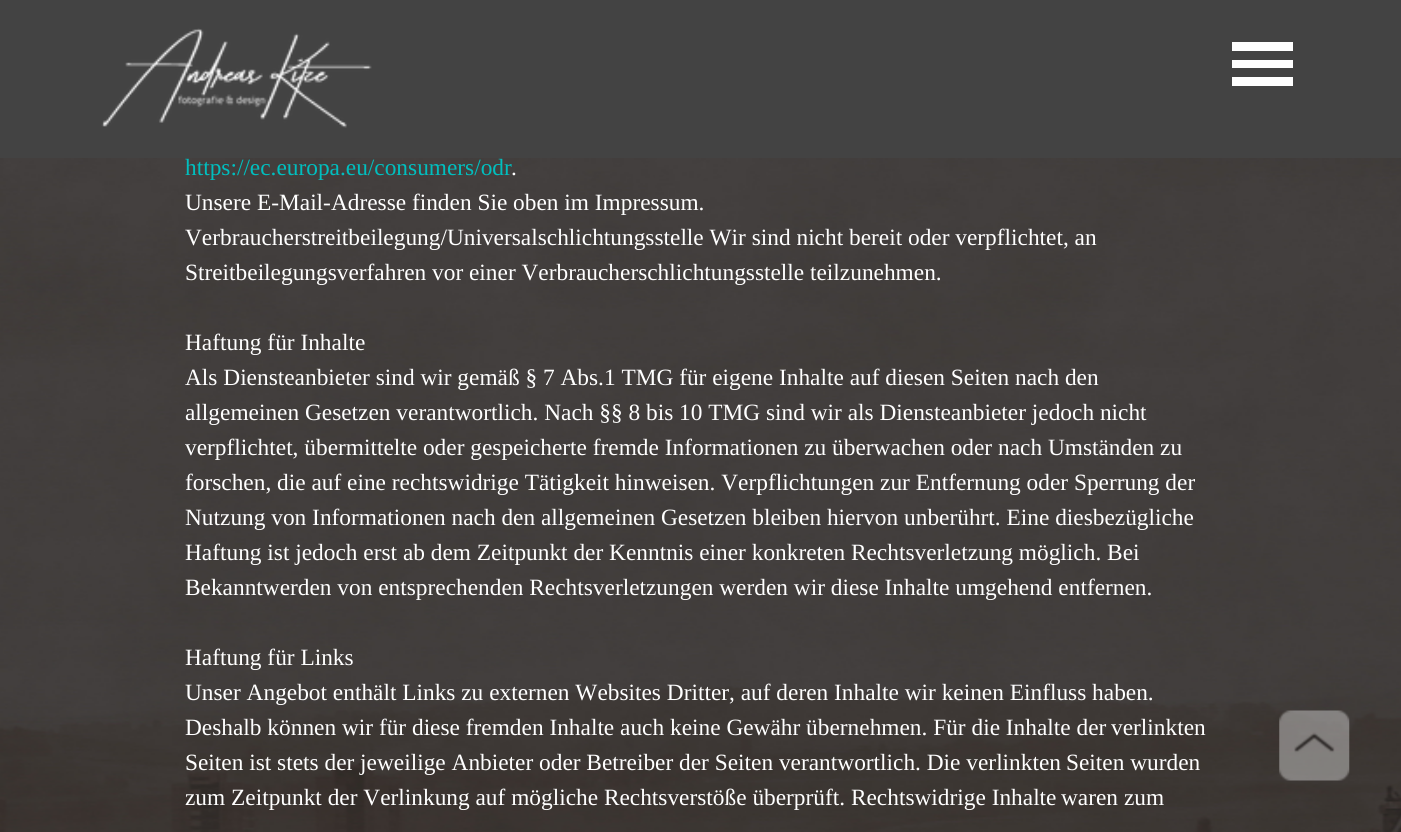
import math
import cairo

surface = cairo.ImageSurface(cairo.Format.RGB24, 1401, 832)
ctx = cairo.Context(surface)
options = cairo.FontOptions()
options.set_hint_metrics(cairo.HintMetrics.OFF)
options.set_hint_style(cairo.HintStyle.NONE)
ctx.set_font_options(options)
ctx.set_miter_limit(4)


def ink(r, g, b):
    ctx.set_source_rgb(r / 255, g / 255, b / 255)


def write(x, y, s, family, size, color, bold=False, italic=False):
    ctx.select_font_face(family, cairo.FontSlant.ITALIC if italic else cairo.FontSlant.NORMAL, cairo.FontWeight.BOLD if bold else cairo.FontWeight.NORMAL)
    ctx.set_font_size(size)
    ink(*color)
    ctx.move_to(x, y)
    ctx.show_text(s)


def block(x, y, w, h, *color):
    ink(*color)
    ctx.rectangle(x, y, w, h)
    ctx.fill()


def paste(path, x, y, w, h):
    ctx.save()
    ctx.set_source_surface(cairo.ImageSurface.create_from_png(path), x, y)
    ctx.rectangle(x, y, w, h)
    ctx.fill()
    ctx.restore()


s1 = dict(family="Liberation Serif", size=23.35, color=(0, 191, 191))
s2 = dict(family="Liberation Serif", size=23.35, color=(255, 255, 255))

ink(255, 255, 255)
ctx.paint()
paste("pic1.png", 0, 158, 1401, 674)
block(0, 0, 1401, 158, 67, 67, 67)
paste("pic2.png", 101, 28, 271, 100)
block(1232, 42, 61, 9, 255, 255, 255)
block(1232, 60, 61, 8, 255, 255, 255)
block(1232, 77, 61, 9, 255, 255, 255)
write(185, 175, "https://ec.europa.eu/consumers/odr", **s1)
write(511, 175, ".", **s2)
write(185, 210, "Unsere E-Mail-Adresse finden Sie oben im Impressum.", **s2)
write(185, 245, "Verbraucherstreitbeilegung/Universalschlichtungsstelle Wir sind nicht bereit oder verpflichtet, an", **s2)
write(185, 280, "Streitbeilegungsverfahren vor einer Verbraucherschlichtungsstelle teilzunehmen.", **s2)
write(185, 350, "Haftung für Inhalte", **s2)
write(185, 385, "Als Diensteanbieter sind wir gemäß § 7 Abs.1 TMG für eigene Inhalte auf diesen Seiten nach den", **s2)
write(185, 420, "allgemeinen Gesetzen verantwortlich. Nach §§ 8 bis 10 TMG sind wir als Diensteanbieter jedoch nicht", **s2)
write(185, 455, "verpflichtet, übermittelte oder gespeicherte fremde Informationen zu überwachen oder nach Umständen zu", **s2)
write(185, 490, "forschen, die auf eine rechtswidrige Tätigkeit hinweisen. Verpflichtungen zur Entfernung oder Sperrung der", **s2)
write(185, 525, "Nutzung von Informationen nach den allgemeinen Gesetzen bleiben hiervon unberührt. Eine diesbezügliche", **s2)
write(185, 560, "Haftung ist jedoch erst ab dem Zeitpunkt der Kenntnis einer konkreten Rechtsverletzung möglich. Bei", **s2)
write(185, 595, "Bekanntwerden von entsprechenden Rechtsverletzungen werden wir diese Inhalte umgehend entfernen.", **s2)
write(185, 665, "Haftung für Links", **s2)
write(185, 700, "Unser Angebot enthält Links zu externen Websites Dritter, auf deren Inhalte wir keinen Einfluss haben.", **s2)
write(185, 735, "Deshalb können wir für diese fremden Inhalte auch keine Gewähr übernehmen. Für die Inhalte der", **s2)
write(1111, 735, "verlinkten", **s2)
write(185, 770, "Seiten ist stets der jeweilige Anbieter oder Betreiber der Seiten verantwortlich. Die verlinkten", **s2)
write(1066, 770, "Seiten wurden", **s2)
write(185, 805, "zum Zeitpunkt der Verlinkung auf mögliche Rechtsverstöße überprüft. Rechtswidrige Inhalte", **s2)
write(1061, 805, "waren zum", **s2)
paste("pic3.png", 1279, 710, 71, 71)
surface.write_to_png("screenshot.png")
